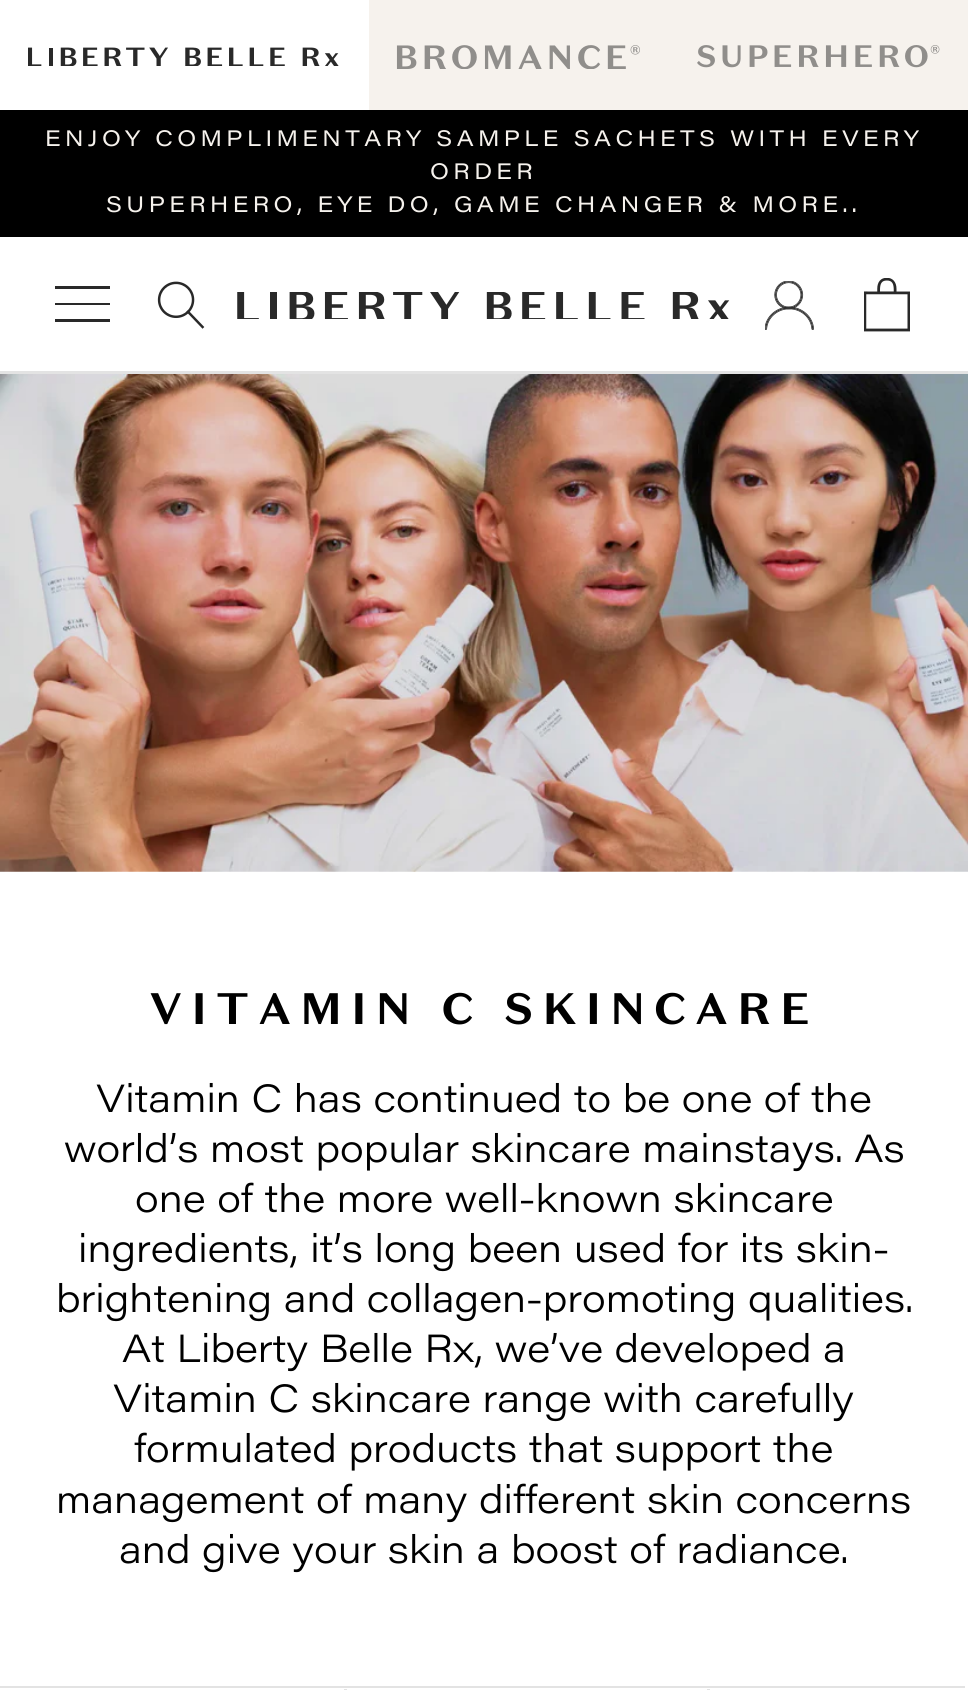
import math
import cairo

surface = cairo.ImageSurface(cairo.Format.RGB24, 968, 1690)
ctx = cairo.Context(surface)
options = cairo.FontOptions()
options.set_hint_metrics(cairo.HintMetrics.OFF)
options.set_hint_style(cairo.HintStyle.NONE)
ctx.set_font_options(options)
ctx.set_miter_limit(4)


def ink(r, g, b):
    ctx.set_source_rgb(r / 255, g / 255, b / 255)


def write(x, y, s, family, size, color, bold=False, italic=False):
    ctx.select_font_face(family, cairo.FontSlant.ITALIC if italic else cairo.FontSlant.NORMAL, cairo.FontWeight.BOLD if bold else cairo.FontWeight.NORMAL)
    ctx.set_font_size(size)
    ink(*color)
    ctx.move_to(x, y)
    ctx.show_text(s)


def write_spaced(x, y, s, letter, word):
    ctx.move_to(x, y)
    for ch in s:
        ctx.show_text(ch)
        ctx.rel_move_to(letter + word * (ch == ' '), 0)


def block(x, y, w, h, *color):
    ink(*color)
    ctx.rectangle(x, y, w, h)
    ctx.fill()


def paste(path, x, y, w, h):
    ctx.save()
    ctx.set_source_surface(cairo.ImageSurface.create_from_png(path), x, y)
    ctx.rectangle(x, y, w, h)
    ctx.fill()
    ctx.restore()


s1 = dict(family="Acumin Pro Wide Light", size=38.5, color=(0, 0, 0))

ink(255, 255, 255)
ctx.paint()
block(369, 0, 599, 110, 246, 242, 237)
paste("pic1.png", 28, 47, 311, 19)
paste("pic2.png", 396, 45, 244, 24)
paste("pic3.png", 697, 45, 243, 23)
block(0, 110, 968, 127, 0, 0, 0)
ctx.select_font_face("Acumin Pro Wide")
ctx.set_font_size(22)
ink(246, 242, 237)
write_spaced(45, 146, "ENJOY COMPLIMENTARY SAMPLE SACHETS WITH EVERY", 4.4, 0)
write_spaced(430, 179, "ORDER", 4.4, 0)
write_spaced(106, 212, "SUPERHERO, EYE DO, GAME CHANGER & MORE..", 4.4, 0)
block(0, 371, 968, 3, 227, 227, 227)
block(55, 286, 55, 3, 41, 41, 41)
block(55, 303, 55, 2, 41, 41, 41)
block(55, 319, 55, 3, 41, 41, 41)
paste("pic4.png", 157, 281, 48, 48)
paste("pic5.png", 237, 292, 493, 27)
paste("pic6.png", 765, 281, 49, 49)
paste("pic7.png", 864, 278, 46, 54)
paste("pic8.png", 0, 374, 968, 498)
ctx.select_font_face("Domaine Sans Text", cairo.FontSlant.NORMAL, cairo.FontWeight.BOLD)
ctx.set_font_size(44)
ink(0, 0, 0)
write_spaced(149, 1024, "VITAMIN C SKINCARE", 8.75, 0)
write(96, 1112, "Vitamin C has continued to be one of the", **s1)
write(64, 1162, "world’s most popular skincare mainstays. As", **s1)
write(135, 1212, "one of the more well-known skincare", **s1)
write(78, 1262, "ingredients, it’s long been used for its skin-", **s1)
write(56, 1312, "brightening and collagen-promoting qualities.", **s1)
write(122, 1362, "At Liberty Belle Rx, we’ve developed a", **s1)
write(113, 1412, "Vitamin C skincare range with carefully", **s1)
write(134, 1462, "formulated products that support the", **s1)
write(56, 1513, "management of many different skin concerns", **s1)
write(119, 1563, "and give your skin a boost of radiance.", **s1)
ink(227, 227, 227)
ctx.new_path()
ctx.move_to(-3, 1686)
ctx.line_to(-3, 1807)
ctx.line_to(0, 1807)
ctx.line_to(0, 1688)
ctx.line_to(965, 1688)
ctx.line_to(965, 1686)
ctx.close_path()
ctx.fill()
block(344, 1689, 3, 1, 227, 227, 227)
block(707, 1689, 3, 1, 227, 227, 227)
surface.write_to_png("screenshot.png")
